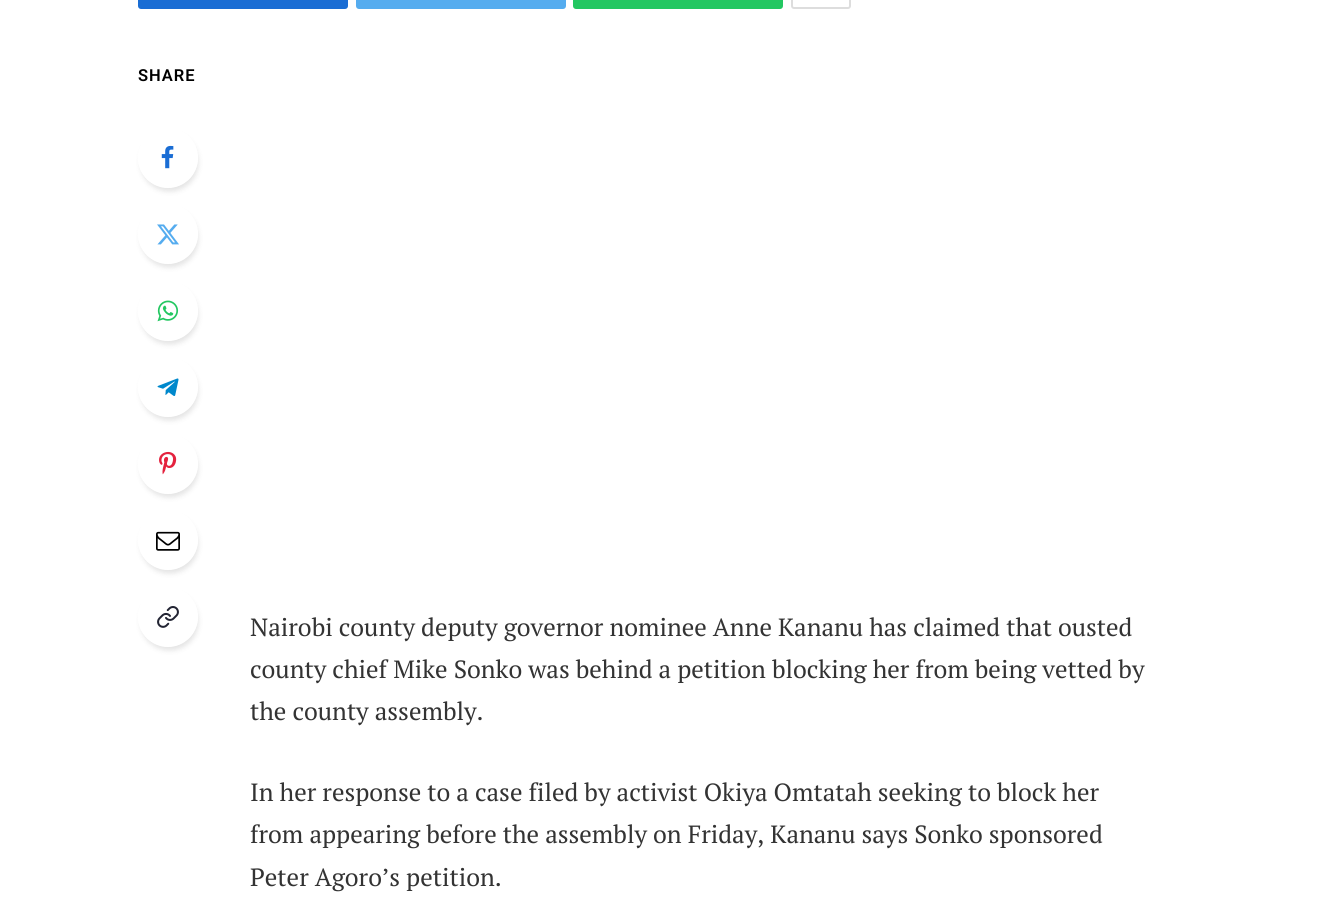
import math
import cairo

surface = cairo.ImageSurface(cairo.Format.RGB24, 1324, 918)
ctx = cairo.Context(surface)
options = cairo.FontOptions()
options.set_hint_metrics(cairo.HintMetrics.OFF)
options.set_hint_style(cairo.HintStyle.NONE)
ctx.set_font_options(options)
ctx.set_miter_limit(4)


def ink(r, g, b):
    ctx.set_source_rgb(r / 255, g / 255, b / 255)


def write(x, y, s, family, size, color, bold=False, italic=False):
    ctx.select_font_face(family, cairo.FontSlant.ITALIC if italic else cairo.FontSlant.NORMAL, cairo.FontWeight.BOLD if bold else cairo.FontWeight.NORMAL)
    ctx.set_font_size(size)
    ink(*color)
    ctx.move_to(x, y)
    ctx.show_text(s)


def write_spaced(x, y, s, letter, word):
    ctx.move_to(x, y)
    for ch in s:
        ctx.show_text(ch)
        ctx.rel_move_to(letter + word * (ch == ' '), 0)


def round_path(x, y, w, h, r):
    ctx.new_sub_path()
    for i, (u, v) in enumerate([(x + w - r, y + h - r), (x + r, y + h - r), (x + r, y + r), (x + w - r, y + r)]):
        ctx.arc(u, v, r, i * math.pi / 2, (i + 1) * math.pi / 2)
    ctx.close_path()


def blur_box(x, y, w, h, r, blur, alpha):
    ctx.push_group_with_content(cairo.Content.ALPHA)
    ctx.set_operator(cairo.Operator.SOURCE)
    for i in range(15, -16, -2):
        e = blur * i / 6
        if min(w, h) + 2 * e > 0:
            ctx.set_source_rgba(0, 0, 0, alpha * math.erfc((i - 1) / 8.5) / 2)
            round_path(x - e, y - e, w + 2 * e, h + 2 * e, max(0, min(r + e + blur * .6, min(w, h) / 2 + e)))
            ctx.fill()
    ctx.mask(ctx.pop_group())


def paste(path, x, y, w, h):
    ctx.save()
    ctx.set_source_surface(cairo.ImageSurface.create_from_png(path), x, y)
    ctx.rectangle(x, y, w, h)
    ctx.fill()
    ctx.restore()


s1 = dict(family="PT Serif", size=24.9, color=(51, 51, 51))

ink(255, 255, 255)
ctx.paint()
ink(26, 109, 212)
round_path(138, -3, 210, 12, 3)
ctx.fill()
ink(85, 172, 239)
round_path(356, -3, 210, 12, 3)
ctx.fill()
ink(35, 199, 97)
round_path(573, -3, 210, 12, 3)
ctx.fill()
round_path(792, -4, 58, 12, 2)
ink(221, 221, 221)
ctx.stroke()
ctx.select_font_face("Roboto SemiBold")
ctx.set_font_size(16.5)
ink(0, 0, 0)
write_spaced(138, 81, "SHARE", 1, 0)
ctx.save()
ctx.set_fill_rule(cairo.FillRule.EVEN_ODD)
ctx.new_path()
ctx.move_to(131, 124)
ctx.line_to(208, 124)
ctx.line_to(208, 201)
ctx.line_to(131, 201)
ctx.close_path()
ctx.move_to(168, 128)
ctx.curve_to(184.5, 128, 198, 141.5, 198, 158)
ctx.curve_to(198, 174.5, 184.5, 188, 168, 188)
ctx.curve_to(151.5, 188, 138, 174.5, 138, 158)
ctx.curve_to(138, 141.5, 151.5, 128, 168, 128)
ctx.close_path()
ctx.clip()
ink(0, 0, 0)
blur_box(141, 134, 57, 57, 28.5, 3, 0.12)
ctx.restore()
paste("pic1.png", 161, 145, 13, 24)
ctx.save()
ctx.set_fill_rule(cairo.FillRule.EVEN_ODD)
ctx.new_path()
ctx.move_to(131, 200)
ctx.line_to(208, 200)
ctx.line_to(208, 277)
ctx.line_to(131, 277)
ctx.close_path()
ctx.move_to(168, 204)
ctx.curve_to(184.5, 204, 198, 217.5, 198, 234)
ctx.curve_to(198, 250.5, 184.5, 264, 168, 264)
ctx.curve_to(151.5, 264, 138, 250.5, 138, 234)
ctx.curve_to(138, 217.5, 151.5, 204, 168, 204)
ctx.close_path()
ctx.clip()
ink(0, 0, 0)
blur_box(141, 210, 57, 57, 28.5, 3, 0.12)
ctx.restore()
paste("pic2.png", 157, 224, 22, 21)
ctx.save()
ctx.set_fill_rule(cairo.FillRule.EVEN_ODD)
ctx.new_path()
ctx.move_to(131, 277)
ctx.line_to(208, 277)
ctx.line_to(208, 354)
ctx.line_to(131, 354)
ctx.close_path()
ctx.move_to(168, 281)
ctx.curve_to(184.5, 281, 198, 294.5, 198, 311)
ctx.curve_to(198, 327.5, 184.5, 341, 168, 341)
ctx.curve_to(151.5, 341, 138, 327.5, 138, 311)
ctx.curve_to(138, 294.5, 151.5, 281, 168, 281)
ctx.close_path()
ctx.clip()
ink(0, 0, 0)
blur_box(141, 287, 57, 57, 28.5, 3, 0.12)
ctx.restore()
paste("pic3.png", 157, 300, 22, 22)
ctx.save()
ctx.set_fill_rule(cairo.FillRule.EVEN_ODD)
ctx.new_path()
ctx.move_to(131, 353)
ctx.line_to(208, 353)
ctx.line_to(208, 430)
ctx.line_to(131, 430)
ctx.close_path()
ctx.move_to(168, 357)
ctx.curve_to(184.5, 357, 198, 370.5, 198, 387)
ctx.curve_to(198, 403.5, 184.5, 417, 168, 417)
ctx.curve_to(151.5, 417, 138, 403.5, 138, 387)
ctx.curve_to(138, 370.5, 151.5, 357, 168, 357)
ctx.close_path()
ctx.clip()
ink(0, 0, 0)
blur_box(141, 363, 57, 57, 28.5, 3, 0.12)
ctx.restore()
paste("pic4.png", 157, 378, 22, 18)
ctx.save()
ctx.set_fill_rule(cairo.FillRule.EVEN_ODD)
ctx.new_path()
ctx.move_to(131, 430)
ctx.line_to(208, 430)
ctx.line_to(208, 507)
ctx.line_to(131, 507)
ctx.close_path()
ctx.move_to(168, 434)
ctx.curve_to(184.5, 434, 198, 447.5, 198, 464)
ctx.curve_to(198, 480.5, 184.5, 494, 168, 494)
ctx.curve_to(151.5, 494, 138, 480.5, 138, 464)
ctx.curve_to(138, 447.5, 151.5, 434, 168, 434)
ctx.close_path()
ctx.clip()
ink(0, 0, 0)
blur_box(141, 440, 57, 57, 28.5, 3, 0.12)
ctx.restore()
paste("pic5.png", 159, 451, 18, 24)
ctx.save()
ctx.set_fill_rule(cairo.FillRule.EVEN_ODD)
ctx.new_path()
ctx.move_to(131, 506)
ctx.line_to(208, 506)
ctx.line_to(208, 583)
ctx.line_to(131, 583)
ctx.close_path()
ctx.move_to(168, 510)
ctx.curve_to(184.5, 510, 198, 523.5, 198, 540)
ctx.curve_to(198, 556.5, 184.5, 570, 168, 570)
ctx.curve_to(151.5, 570, 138, 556.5, 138, 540)
ctx.curve_to(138, 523.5, 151.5, 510, 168, 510)
ctx.close_path()
ctx.clip()
ink(0, 0, 0)
blur_box(141, 516, 57, 57, 28.5, 3, 0.12)
ctx.restore()
paste("pic6.png", 156, 531, 24, 20)
ctx.save()
ctx.set_fill_rule(cairo.FillRule.EVEN_ODD)
ctx.new_path()
ctx.move_to(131, 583)
ctx.line_to(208, 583)
ctx.line_to(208, 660)
ctx.line_to(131, 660)
ctx.close_path()
ctx.move_to(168, 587)
ctx.curve_to(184.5, 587, 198, 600.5, 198, 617)
ctx.curve_to(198, 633.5, 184.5, 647, 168, 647)
ctx.curve_to(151.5, 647, 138, 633.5, 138, 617)
ctx.curve_to(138, 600.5, 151.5, 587, 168, 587)
ctx.close_path()
ctx.clip()
ink(0, 0, 0)
blur_box(141, 593, 57, 57, 28.5, 3, 0.12)
ctx.restore()
paste("pic7.png", 157, 606, 22, 22)
write(250, 636, "Nairobi county deputy governor nominee Anne Kananu has claimed that ousted", **s1)
write(250, 678, "county chief Mike Sonko was behind a petition blocking her from being vetted by", **s1)
write(250, 720, "the county assembly.", **s1)
write(250, 801, "In her response to a case filed by activist Okiya Omtatah seeking to block her", **s1)
write(250, 843, "from appearing before the assembly on Friday, Kananu says Sonko sponsored", **s1)
write(250, 886, "Peter Agoro’s petition.", **s1)
surface.write_to_png("screenshot.png")
